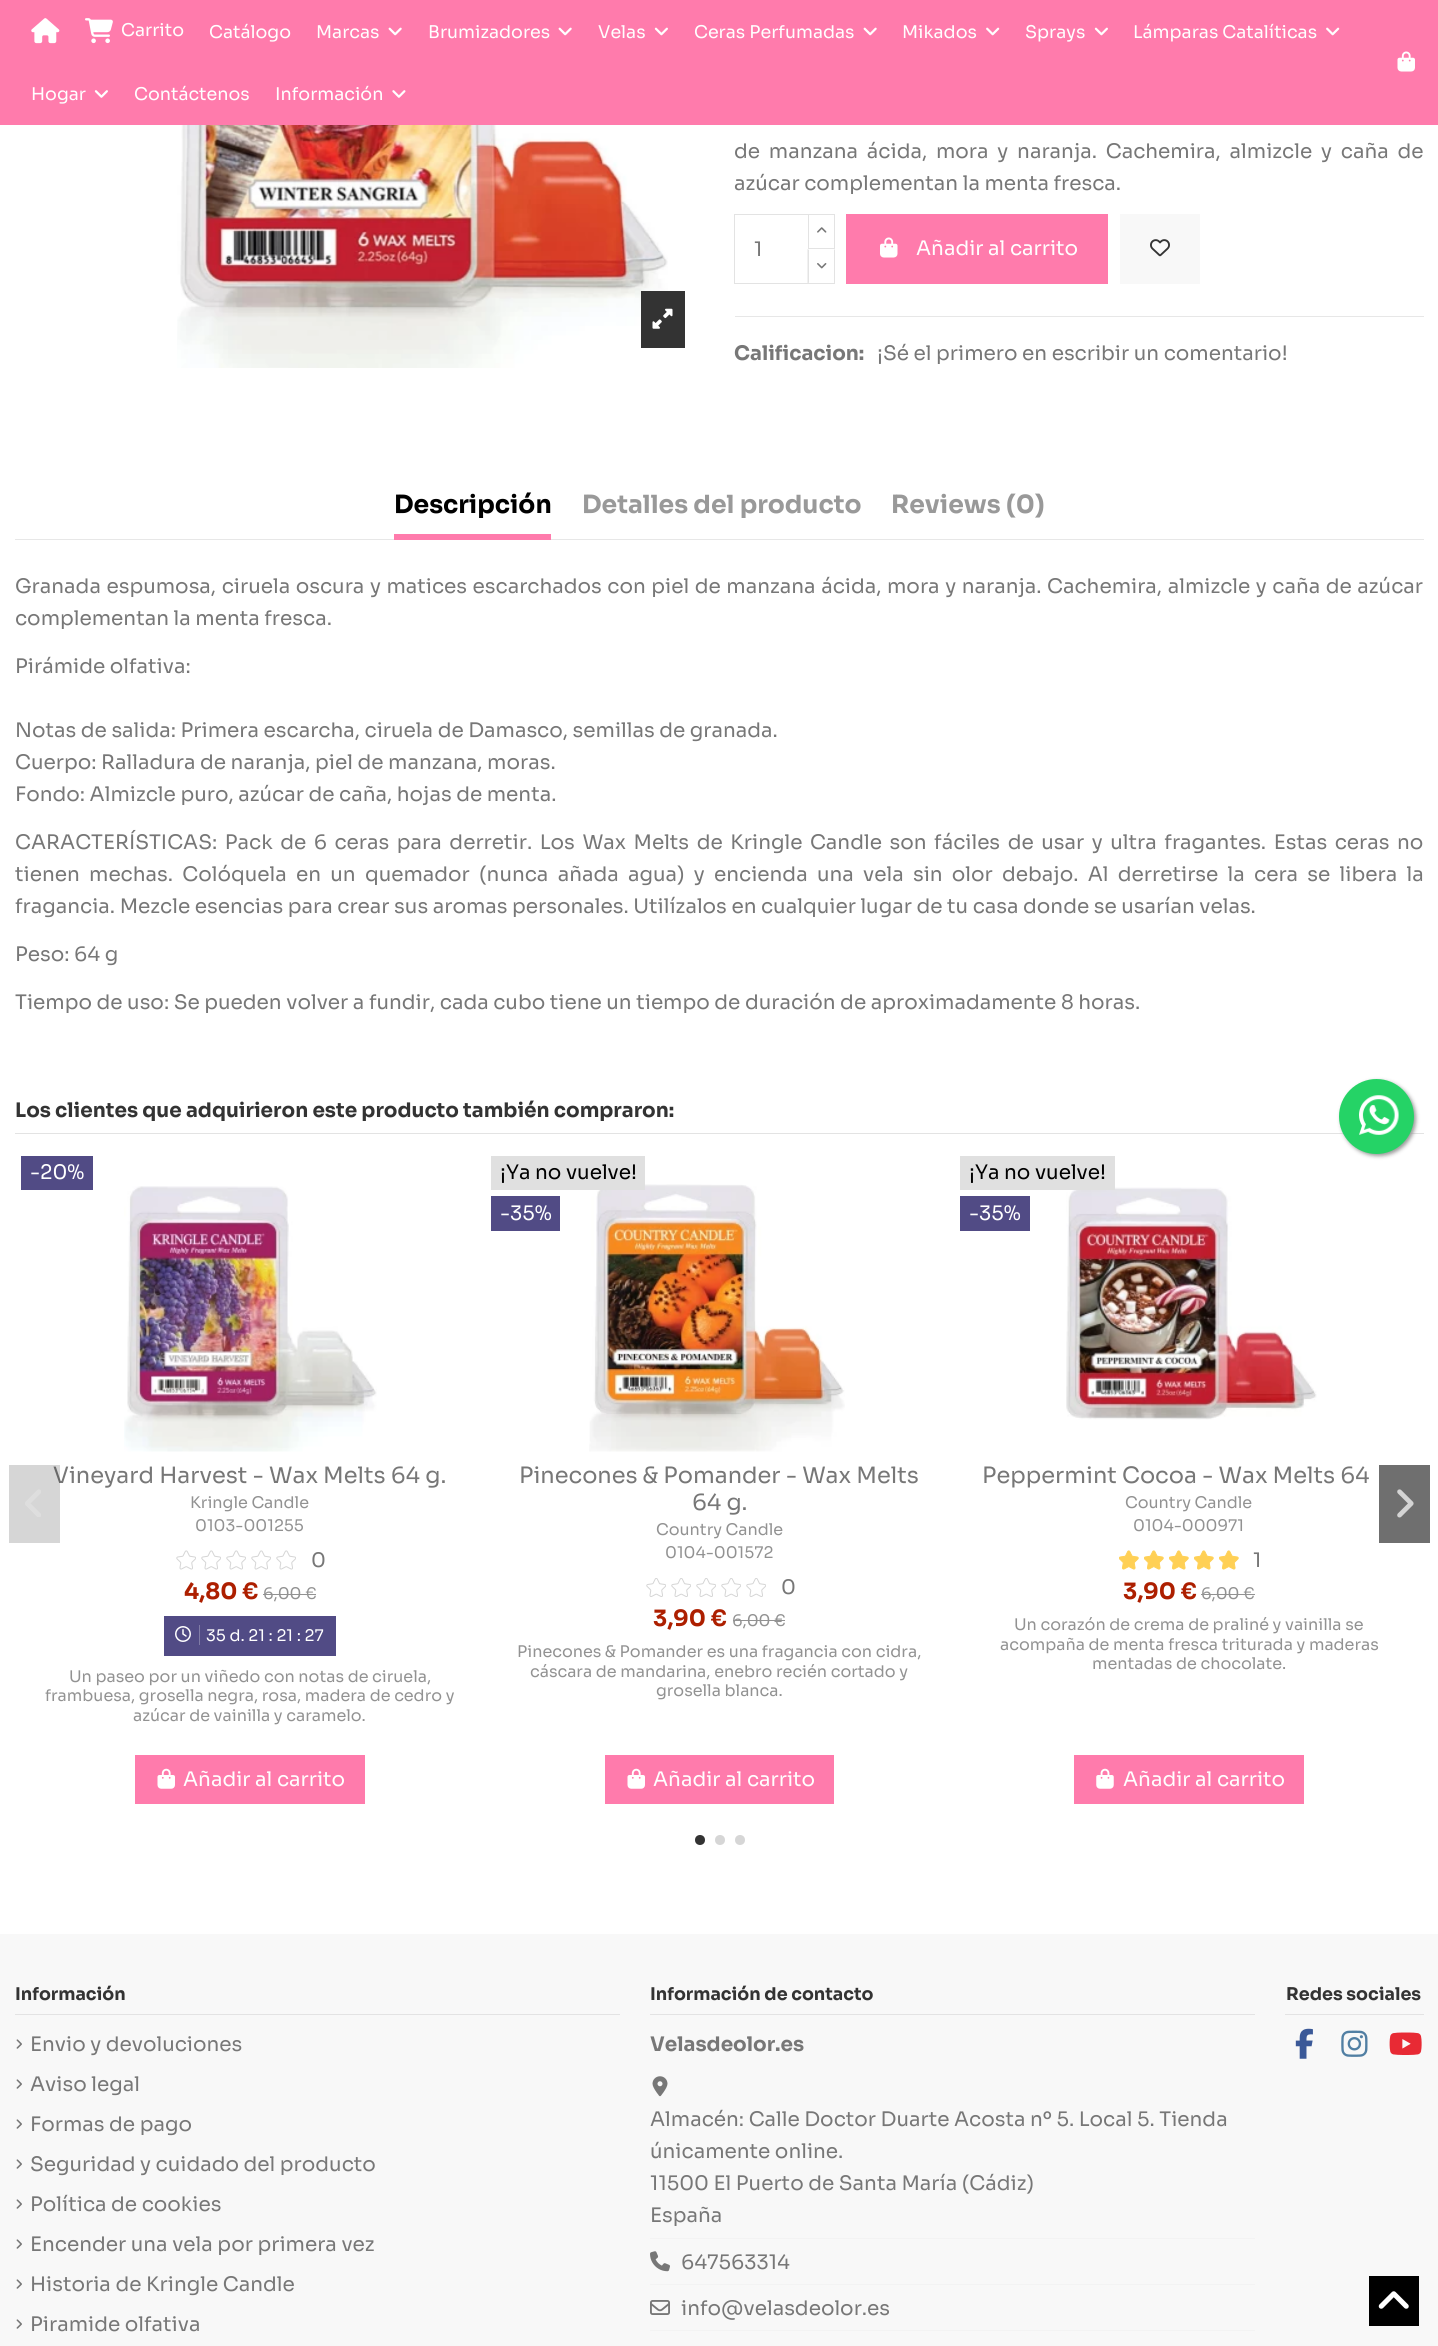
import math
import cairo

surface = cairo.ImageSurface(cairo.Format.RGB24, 1438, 2346)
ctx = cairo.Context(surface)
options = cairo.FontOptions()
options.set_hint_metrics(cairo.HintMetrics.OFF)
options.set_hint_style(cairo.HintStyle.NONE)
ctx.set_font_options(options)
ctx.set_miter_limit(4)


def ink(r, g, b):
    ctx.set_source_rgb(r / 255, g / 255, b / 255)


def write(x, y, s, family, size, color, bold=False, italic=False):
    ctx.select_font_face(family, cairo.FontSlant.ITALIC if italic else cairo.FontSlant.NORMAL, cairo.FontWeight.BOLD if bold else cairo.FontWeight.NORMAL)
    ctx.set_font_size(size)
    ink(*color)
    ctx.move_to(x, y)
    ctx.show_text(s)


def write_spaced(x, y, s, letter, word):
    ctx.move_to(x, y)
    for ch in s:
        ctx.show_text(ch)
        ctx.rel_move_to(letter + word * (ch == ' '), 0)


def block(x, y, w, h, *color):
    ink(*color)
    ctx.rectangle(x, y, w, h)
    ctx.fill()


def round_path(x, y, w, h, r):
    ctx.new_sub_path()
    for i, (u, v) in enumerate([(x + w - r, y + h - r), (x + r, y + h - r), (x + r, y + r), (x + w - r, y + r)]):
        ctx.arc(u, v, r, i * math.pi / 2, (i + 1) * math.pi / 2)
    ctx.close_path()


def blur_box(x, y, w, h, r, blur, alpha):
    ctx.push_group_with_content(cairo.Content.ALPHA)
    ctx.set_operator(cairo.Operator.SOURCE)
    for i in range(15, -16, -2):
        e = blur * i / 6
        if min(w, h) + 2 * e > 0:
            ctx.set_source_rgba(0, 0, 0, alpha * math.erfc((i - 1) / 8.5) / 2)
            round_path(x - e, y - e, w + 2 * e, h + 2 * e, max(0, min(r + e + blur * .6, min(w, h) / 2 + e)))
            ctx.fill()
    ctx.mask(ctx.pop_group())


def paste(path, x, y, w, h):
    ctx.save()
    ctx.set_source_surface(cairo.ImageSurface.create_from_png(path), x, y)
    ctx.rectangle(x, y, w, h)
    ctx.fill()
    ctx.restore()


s1 = dict(family="Sora", size=17.5, color=(255, 255, 255))
s2 = dict(family="Sora", size=20, color=(119, 119, 119))
s3 = dict(family="Sora", size=20, color=(255, 255, 255))
s4 = dict(family="Sora", size=20, color=(119, 119, 119), bold=True)
s5 = dict(family="Sora", size=25, color=(0, 0, 0), bold=True)
s6 = dict(family="Sora", size=25, color=(153, 153, 153), bold=True)
s7 = dict(family="Sora", size=20, color=(51, 51, 51), bold=True)
s8 = dict(family="Sora", size=22.5, color=(119, 119, 119))
s9 = dict(family="Sora", size=16, color=(146, 146, 146))
s10 = dict(family="Sora", size=22.5, color=(173, 31, 0), bold=True)
s11 = dict(family="Sora", size=16, color=(255, 255, 255))
s12 = dict(family="Sora", size=20, color=(0, 0, 0))
s13 = dict(family="Sora", size=17.5, color=(51, 51, 51), bold=True)

ink(255, 255, 255)
ctx.paint()
block(0, 0, 1438, 125, 255, 123, 172)
paste("pic1.png", 31, 18, 29, 26)
paste("pic2.png", 85, 18, 28, 26)
write(121, 36, "Carrito", **s1)
write(209, 38, "Catálogo", **s1)
write(316, 38, "Marcas", **s1)
paste("pic3.png", 388, 27, 14, 9)
write(428, 38, "Brumizadores", **s1)
paste("pic3.png", 558, 27, 14, 9)
write(598, 38, "Velas", **s1)
paste("pic4.png", 654, 27, 14, 9)
write(694, 38, "Ceras Perfumadas", **s1)
paste("pic3.png", 863, 27, 14, 9)
write(902, 38, "Mikados", **s1)
paste("pic5.png", 986, 27, 14, 9)
write(1025, 38, "Sprays", **s1)
paste("pic4.png", 1094, 27, 14, 9)
write(1133, 38, "Lámparas Catalíticas", **s1)
paste("pic5.png", 1326, 27, 14, 9)
write(31, 100, "Hogar", **s1)
paste("pic6.png", 94, 90, 14, 8)
write(134, 100, "Contáctenos", **s1)
write(275, 100, "Información", **s1)
paste("pic7.png", 392, 90, 14, 8)
paste("pic8.png", 1397, 51, 18, 21)
paste("pic9.png", 177, 125, 491, 243)
block(641, 291, 44, 57, 51, 51, 51)
paste("pic10.png", 652, 308, 21, 21)
ctx.set_font_size(20)
ink(119, 119, 119)
write_spaced(734, 158, "de manzana ácida, mora y naranja. Cachemira, almizcle y caña de", 0, 4.25)
write(734, 190, "azúcar complementan la menta fresca.", **s2)
ctx.rectangle(734.5, 214.5, 75, 69)
ink(227, 227, 227)
ctx.set_line_width(1)
ctx.stroke()
write(754, 256, "1", **s2)
block(809, 215, 1, 33, 255, 255, 255)
ctx.rectangle(808.5, 214.5, 26, 34)
ink(227, 227, 227)
ctx.stroke()
paste("pic11.png", 817, 227, 10, 6)
block(809, 249, 1, 34, 255, 255, 255)
ink(227, 227, 227)
ctx.new_path()
ctx.move_to(835, 249)
ctx.line_to(835, 284)
ctx.line_to(834, 282.5)
ctx.line_to(834, 250)
ctx.close_path()
ctx.fill()
block(808, 283, 27, 1, 227, 227, 227)
ctx.new_path()
ctx.move_to(807.5, 284)
ctx.line_to(807.5, 249)
ctx.line_to(809, 250)
ctx.line_to(809, 282.5)
ctx.close_path()
ctx.fill()
paste("pic12.png", 817, 263, 10, 6)
block(846, 214, 262, 70, 255, 123, 172)
paste("pic13.png", 880, 237, 18, 21)
write(916, 255, "Añadir al carrito", **s3)
block(1120, 214, 80, 70, 248, 248, 248)
paste("pic14.png", 1150, 239, 20, 18)
block(735, 316, 689, 1, 231, 231, 231)
write(734, 360, "Calificacion:", **s4)
write(877, 360, "¡Sé el primero en escribir un comentario!", **s2)
block(15, 539, 1409, 1, 231, 231, 231)
block(394, 534, 157, 6, 255, 123, 172)
write(394, 513, "Descripción", **s5)
write(582, 513, "Detalles del producto", **s6)
write(891, 513, "Reviews (0)", **s6)
ctx.select_font_face("Sora")
ctx.set_font_size(20)
ink(119, 119, 119)
write_spaced(15, 593, "Granada espumosa, ciruela oscura y matices escarchados con piel de manzana ácida, mora y naranja. Cachemira, almizcle y caña de azúcar", 0, 1)
write(15, 625, "complementan la menta fresca.", **s2)
write(15, 673, "Pirámide olfativa:", **s2)
write(15, 737, "Notas de salida: Primera escarcha, ciruela de Damasco, semillas de granada.", **s2)
write(15, 769, "Cuerpo: Ralladura de naranja, piel de manzana, moras.", **s2)
write(15, 801, "Fondo: Almizcle puro, azúcar de caña, hojas de menta.", **s2)
write_spaced(15, 849, "CARACTERÍSTICAS: Pack de 6 ceras para derretir. Los Wax Melts de Kringle Candle son fáciles de usar y ultra fragantes. Estas ceras no", 0, 3)
write_spaced(15, 881, "tienen mechas. Colóquela en un quemador (nunca añada agua) y encienda una vela sin olor debajo. Al derretirse la cera se libera la", 0, 4.7)
write(15, 913, "fragancia. Mezcle esencias para crear sus aromas personales. Utilízalos en cualquier lugar de tu casa donde se usarían velas.", **s2)
write(15, 961, "Peso: 64 g", **s2)
write(15, 1009, "Tiempo de uso: Se pueden volver a fundir, cada cubo tiene un tiempo de duración de aproximadamente 8 horas.", **s2)
block(15, 1133, 1409, 1, 227, 227, 227)
write(15, 1117, "Los clientes que adquirieron este producto también compraron:", **s7)
block(21, 1156, 72, 34, 81, 75, 133)
write(30, 1179, "-20%", **s3)
paste("pic15.png", 124, 1186, 253, 266)
write(53, 1483, "Vineyard Harvest - Wax Melts 64 g.", **s8)
write(190, 1508, "Kringle Candle", **s9)
write(195, 1531, "0103-001255", **s9)
paste("pic16.png", 176, 1550, 20, 20)
paste("pic16.png", 201, 1550, 20, 20)
paste("pic16.png", 226, 1550, 20, 20)
paste("pic16.png", 251, 1550, 20, 20)
paste("pic16.png", 276, 1550, 20, 20)
write(311, 1567, "0", **s2)
write(184, 1599, "4,80 €", **s10)
write(263, 1599, "6,00 €", **s9)
block(263, 1594, 53, 1, 146, 146, 146)
block(164, 1616, 172, 40, 81, 75, 133)
block(199, 1625, 1, 20, 128, 124, 166)
paste("pic17.png", 175, 1626, 16, 16)
write(206, 1641, "35 d. 21 : 21 : 27", **s11)
write(69, 1682, "Un paseo por un viñedo con notas de ciruela,", **s9)
write(45, 1701, "frambuesa, grosella negra, rosa, madera de cedro y", **s9)
write(133, 1721, "azúcar de vainilla y caramelo.", **s9)
block(135, 1755, 230, 49, 255, 123, 172)
paste("pic18.png", 157, 1768, 18, 21)
write(183, 1786, "Añadir al carrito", **s3)
paste("pic19.png", 589, 1184, 256, 268)
block(491, 1156, 154, 34, 224, 224, 224)
write(500, 1179, "¡Ya no vuelve!", **s12)
block(491, 1196, 69, 35, 81, 75, 133)
write(500, 1220, "-35%", **s3)
write(519, 1483, "Pinecones & Pomander - Wax Melts", **s8)
write(692, 1510, "64 g.", **s8)
write(656, 1535, "Country Candle", **s9)
write(665, 1558, "0104-001572", **s9)
paste("pic20.png", 646, 1578, 20, 19)
paste("pic20.png", 671, 1578, 20, 19)
paste("pic20.png", 696, 1578, 20, 19)
paste("pic20.png", 721, 1578, 20, 19)
paste("pic20.png", 746, 1578, 20, 19)
write(781, 1594, "0", **s2)
write(653, 1626, "3,90 €", **s10)
write(732, 1626, "6,00 €", **s9)
block(733, 1620, 52, 1, 146, 146, 146)
write(517, 1657, "Pinecones & Pomander es una fragancia con cidra,", **s9)
write(530, 1677, "cáscara de mandarina, enebro recién cortado y", **s9)
write(656, 1696, "grosella blanca.", **s9)
block(605, 1755, 229, 49, 255, 123, 172)
paste("pic18.png", 627, 1768, 18, 21)
write(653, 1786, "Añadir al carrito", **s3)
paste("pic21.png", 1066, 1187, 251, 233)
block(960, 1156, 155, 34, 224, 224, 224)
write(969, 1179, "¡Ya no vuelve!", **s12)
block(960, 1196, 70, 35, 81, 75, 133)
write(969, 1220, "-35%", **s3)
write(982, 1483, "Peppermint Cocoa - Wax Melts 64", **s8)
write(1125, 1508, "Country Candle", **s9)
write(1133, 1531, "0104-000971", **s9)
paste("pic22.png", 1119, 1550, 20, 20)
paste("pic22.png", 1144, 1550, 20, 20)
paste("pic22.png", 1169, 1550, 20, 20)
paste("pic22.png", 1194, 1550, 20, 20)
paste("pic22.png", 1219, 1550, 20, 20)
write(1253, 1567, "1", **s2)
write(1123, 1599, "3,90 €", **s10)
write(1201, 1599, "6,00 €", **s9)
block(1201, 1594, 54, 1, 146, 146, 146)
write(1014, 1630, "Un corazón de crema de praliné y vainilla se", **s9)
write(1000, 1650, "acompaña de menta fresca triturada y maderas", **s9)
write(1092, 1669, "mentadas de chocolate.", **s9)
block(1074, 1755, 230, 49, 255, 123, 172)
paste("pic23.png", 1096, 1768, 18, 21)
write(1123, 1786, "Añadir al carrito", **s3)
ctx.set_source_rgba(0.2, 0.2, 0.2, 0.2)
ctx.rectangle(9, 1465, 51, 78)
ctx.fill()
paste("pic24.png", 25, 1489, 16, 28)
ctx.set_source_rgba(0.2, 0.2, 0.2, 0.7)
ctx.rectangle(1379, 1465, 51, 78)
ctx.fill()
paste("pic25.png", 1397, 1489, 17, 29)
ink(51, 51, 51)
ctx.arc(700, 1840, 5, 0, 2 * math.pi)
ctx.fill()
ink(214, 214, 214)
ctx.arc(720, 1840, 5, 0, 2 * math.pi)
ctx.fill()
ctx.arc(740, 1840, 5, 0, 2 * math.pi)
ctx.fill()
block(0, 1934, 1438, 412, 248, 248, 248)
block(15, 2014, 605, 1, 227, 227, 227)
write(15, 2000, "Información", **s13)
paste("pic26.png", 16, 2039, 6, 10)
write(30, 2051, "Envio y devoluciones", **s2)
paste("pic26.png", 16, 2079, 6, 10)
write(30, 2091, "Aviso legal", **s2)
paste("pic26.png", 16, 2119, 6, 10)
write(30, 2131, "Formas de pago", **s2)
paste("pic26.png", 16, 2159, 6, 10)
write(30, 2171, "Seguridad y cuidado del producto", **s2)
paste("pic26.png", 16, 2199, 6, 10)
write(30, 2211, "Política de cookies", **s2)
paste("pic26.png", 16, 2239, 6, 10)
write(30, 2251, "Encender una vela por primera vez", **s2)
paste("pic26.png", 16, 2279, 6, 10)
write(30, 2291, "Historia de Kringle Candle", **s2)
paste("pic26.png", 16, 2319, 6, 10)
write(30, 2331, "Piramide olfativa", **s2)
block(650, 2014, 605, 1, 227, 227, 227)
write(650, 2000, "Información de contacto", **s13)
write(650, 2051, "Velasdeolor.es", **s4)
paste("pic27.png", 652, 2076, 16, 21)
write(650, 2126, "Almacén: Calle Doctor Duarte Acosta nº 5. Local 5. Tienda", **s2)
write(650, 2158, "únicamente online.", **s2)
write(650, 2190, "11500 El Puerto de Santa María (Cádiz)", **s2)
write(650, 2222, "España", **s2)
block(650, 2238, 605, 1, 243, 243, 243)
paste("pic28.png", 650, 2251, 20, 21)
write(681, 2269, "647563314", **s2)
block(650, 2284, 605, 1, 243, 243, 243)
paste("pic29.png", 650, 2300, 20, 15)
write(681, 2315, "info@velasdeolor.es", **s2)
block(650, 2330, 605, 1, 243, 243, 243)
block(1285, 2014, 139, 1, 227, 227, 227)
write(1286, 2000, "Redes sociales", **s13)
paste("pic30.png", 1295, 2028, 18, 31)
paste("pic31.png", 1341, 2030, 27, 27)
paste("pic32.png", 1389, 2032, 33, 23)
ink(153, 153, 153)
blur_box(1341, 1081, 75, 75, 37.5, 2, 1)
ink(37, 211, 102)
ctx.arc(1376.5, 1116.5, 37.5, 0, 2 * math.pi)
ctx.fill()
paste("pic33.png", 1359, 1095, 40, 40)
block(1369, 2276, 50, 50, 0, 0, 0)
paste("pic34.png", 1378, 2291, 31, 18)
surface.write_to_png("screenshot.png")
